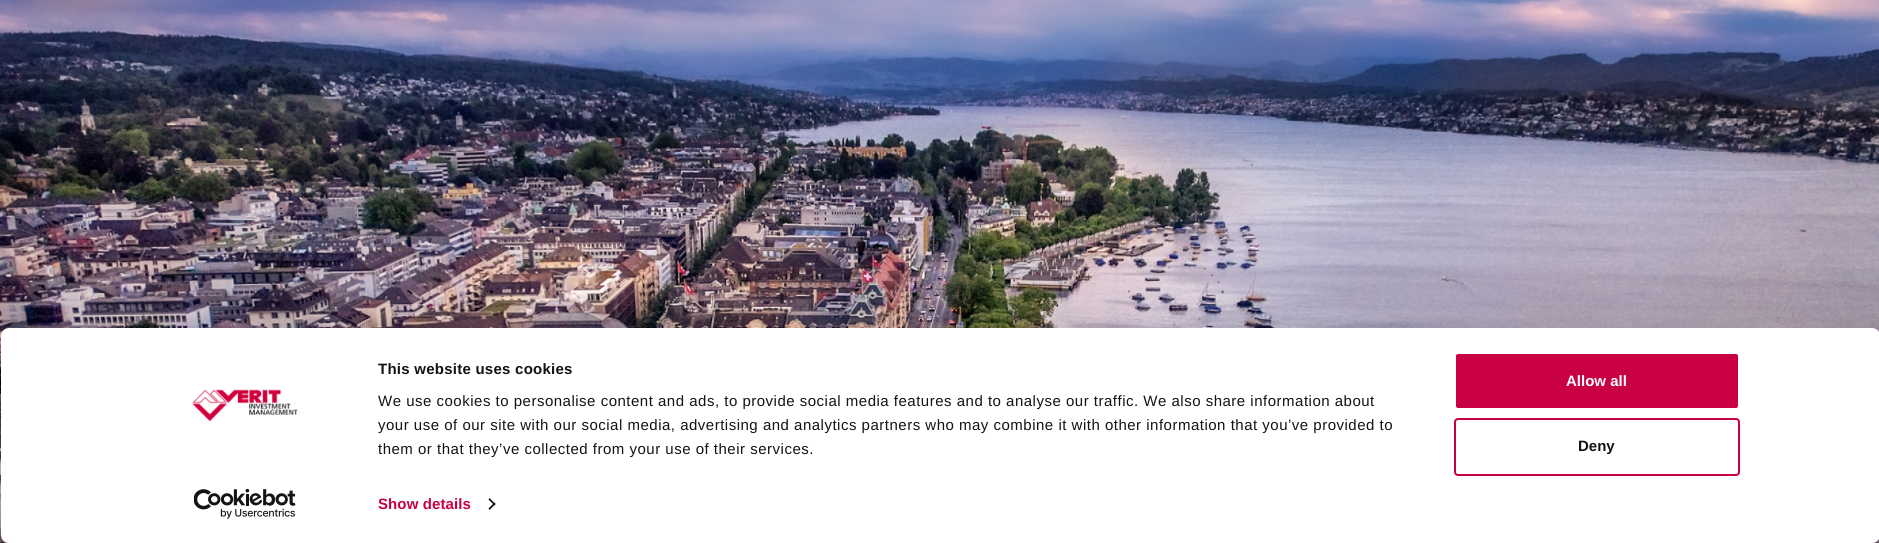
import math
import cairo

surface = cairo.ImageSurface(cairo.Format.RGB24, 1879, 543)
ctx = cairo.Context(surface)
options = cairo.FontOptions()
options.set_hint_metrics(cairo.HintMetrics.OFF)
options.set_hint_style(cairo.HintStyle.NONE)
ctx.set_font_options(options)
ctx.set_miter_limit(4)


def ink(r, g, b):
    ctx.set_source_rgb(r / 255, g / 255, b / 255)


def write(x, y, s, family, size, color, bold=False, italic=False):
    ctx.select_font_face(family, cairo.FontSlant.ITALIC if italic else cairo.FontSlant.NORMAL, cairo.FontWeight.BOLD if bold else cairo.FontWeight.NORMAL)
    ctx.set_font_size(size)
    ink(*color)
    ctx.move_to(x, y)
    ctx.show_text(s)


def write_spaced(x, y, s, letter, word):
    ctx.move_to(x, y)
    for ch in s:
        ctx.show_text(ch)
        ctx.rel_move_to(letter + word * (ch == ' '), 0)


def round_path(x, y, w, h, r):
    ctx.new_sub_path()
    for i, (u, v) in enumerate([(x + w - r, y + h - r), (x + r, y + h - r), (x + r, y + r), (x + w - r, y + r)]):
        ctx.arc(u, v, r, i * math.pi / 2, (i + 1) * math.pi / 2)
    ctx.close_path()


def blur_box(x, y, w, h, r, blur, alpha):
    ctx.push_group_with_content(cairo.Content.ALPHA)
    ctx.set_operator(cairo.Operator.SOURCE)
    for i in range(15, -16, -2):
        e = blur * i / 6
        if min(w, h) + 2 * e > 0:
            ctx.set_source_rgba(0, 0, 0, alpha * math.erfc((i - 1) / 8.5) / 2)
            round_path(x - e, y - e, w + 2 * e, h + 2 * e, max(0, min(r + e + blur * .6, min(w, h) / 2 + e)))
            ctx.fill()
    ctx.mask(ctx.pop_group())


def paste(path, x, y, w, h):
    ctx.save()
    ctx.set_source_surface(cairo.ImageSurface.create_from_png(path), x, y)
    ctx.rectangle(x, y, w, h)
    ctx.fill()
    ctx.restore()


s1 = dict(family="Liberation Sans", size=15, color=(255, 255, 255), bold=True)
s2 = dict(family="Liberation Sans", size=15, color=(20, 20, 20), bold=True)

ink(255, 255, 255)
ctx.paint()
paste("pic1.png", 0, 0, 1879, 543)
ink(0, 0, 0)
blur_box(1, 358, 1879, 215, 8, 35, 0.3)
ink(255, 255, 255)
round_path(1, 328, 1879, 215, 8)
ctx.fill()
paste("pic2.png", 192, 389, 106, 33)
paste("pic3.png", 194, 489, 102, 30)
ctx.save()
ctx.rectangle(378, 358, 1048, 103)
ctx.clip()
ctx.select_font_face("Liberation Sans", cairo.FontSlant.NORMAL, cairo.FontWeight.BOLD)
ctx.set_font_size(15)
ink(20, 20, 20)
write_spaced(378, 374, "This website uses cookies", 0.25, 0)
ctx.restore()
ctx.select_font_face("Liberation Sans")
ctx.set_font_size(15)
ink(20, 20, 20)
write_spaced(378, 406, "We use cookies to personalise content and ads, to provide social media features and to analyse our traffic. We also share information about", 0.5, 0)
write_spaced(378, 430, "your use of our site with our social media, advertising and analytics partners who may combine it with other information that you’ve provided to", 0.5, 0)
write_spaced(378, 454, "them or that they’ve collected from your use of their services.", 0.5, 0)
ctx.select_font_face("Liberation Sans", cairo.FontSlant.NORMAL, cairo.FontWeight.BOLD)
ink(201, 0, 65)
write_spaced(378, 509, "Show details", 0.1, 0)
ink(20, 20, 20)
ctx.new_path()
ctx.move_to(489.5, 498)
ctx.line_to(495.5, 504)
ctx.line_to(494.5, 505.5)
ctx.line_to(488.5, 499.5)
ctx.close_path()
ctx.fill()
ctx.new_path()
ctx.move_to(494.5, 502.5)
ctx.line_to(495.5, 504)
ctx.line_to(489.5, 510)
ctx.line_to(488.5, 508.5)
ctx.close_path()
ctx.fill()
ink(201, 0, 65)
round_path(1455, 353, 284, 56, 3)
ctx.fill_preserve()
ink(255, 255, 255)
ctx.stroke()
write(1566, 386, "Allow all", **s1)
round_path(1455, 419, 284, 56, 3)
ink(201, 0, 65)
ctx.stroke()
write(1578, 451, "Deny", **s2)
surface.write_to_png("screenshot.png")
